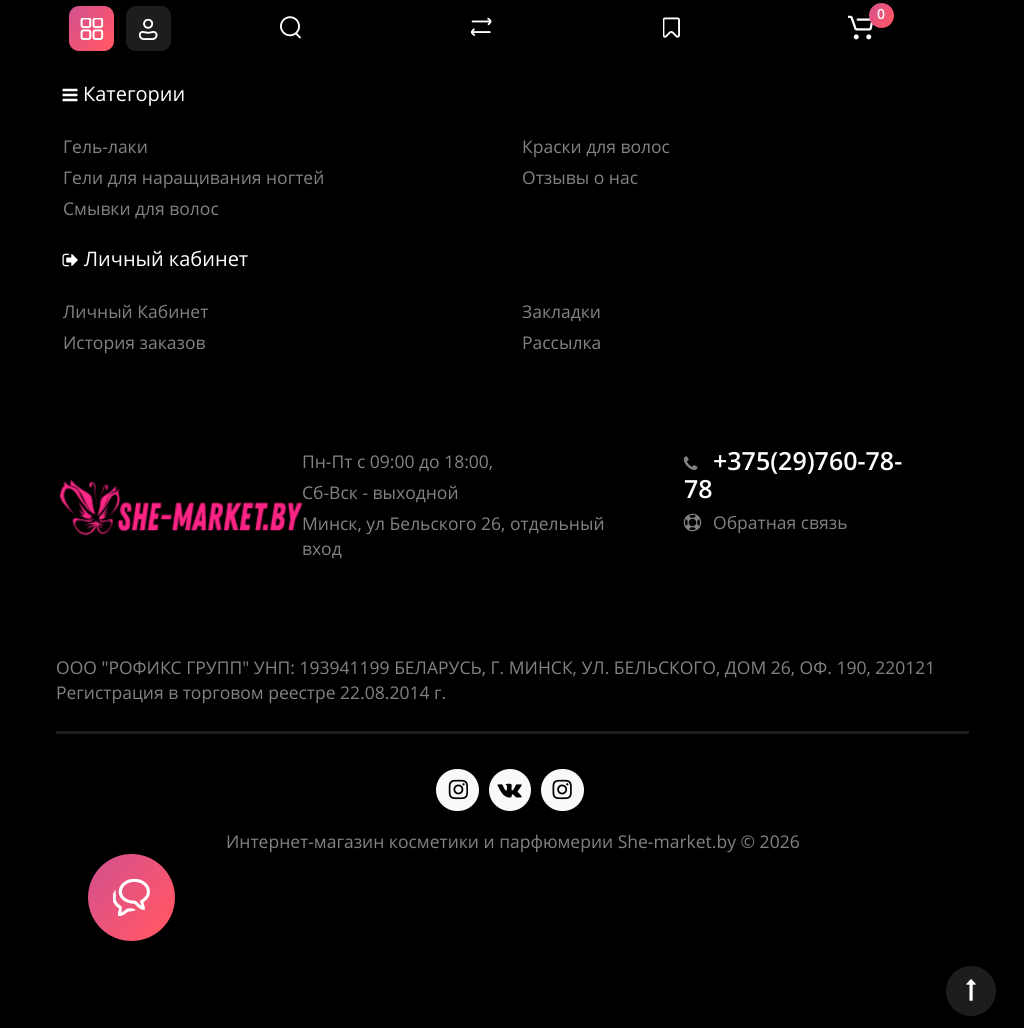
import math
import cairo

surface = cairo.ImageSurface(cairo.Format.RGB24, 1024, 1028)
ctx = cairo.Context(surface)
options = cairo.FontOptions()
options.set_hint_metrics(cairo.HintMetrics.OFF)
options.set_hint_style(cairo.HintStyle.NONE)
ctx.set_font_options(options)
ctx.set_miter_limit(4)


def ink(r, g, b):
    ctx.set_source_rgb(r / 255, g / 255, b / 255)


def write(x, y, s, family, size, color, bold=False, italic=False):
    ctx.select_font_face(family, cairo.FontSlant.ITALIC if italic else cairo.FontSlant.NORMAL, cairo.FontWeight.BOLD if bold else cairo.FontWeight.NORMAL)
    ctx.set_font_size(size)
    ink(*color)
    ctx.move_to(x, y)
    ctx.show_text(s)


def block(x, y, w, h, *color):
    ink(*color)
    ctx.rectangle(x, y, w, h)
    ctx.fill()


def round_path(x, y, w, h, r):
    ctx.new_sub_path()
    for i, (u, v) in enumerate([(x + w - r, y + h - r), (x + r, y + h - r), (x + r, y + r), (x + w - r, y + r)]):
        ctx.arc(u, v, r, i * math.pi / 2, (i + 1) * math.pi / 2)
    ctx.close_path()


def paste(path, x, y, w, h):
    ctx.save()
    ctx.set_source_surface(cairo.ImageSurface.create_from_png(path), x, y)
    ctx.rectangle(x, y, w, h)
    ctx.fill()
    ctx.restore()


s1 = dict(family="Open Sans SemiBold", size=14, color=(255, 255, 255))
s2 = dict(family="Open Sans", size=20, color=(255, 255, 255))
s3 = dict(family="Open Sans", size=17.5, color=(130, 130, 130))
s4 = dict(family="Open Sans SemiBold", size=25, color=(255, 255, 255))

ink(0, 0, 0)
ctx.paint()
gradient = cairo.LinearGradient(58, 1.7, 116, 49)
gradient.add_color_stop_rgba(0, 0.78, 0.314, 0.6, 1)
gradient.add_color_stop_rgba(0.86, 1, 0.337, 0.408, 1)
ctx.set_source(gradient)
round_path(69, 6, 45, 45, 10)
ctx.fill()
paste("pic1.png", 80, 18, 24, 22)
ink(29, 29, 29)
round_path(126, 6, 45, 45, 10)
ctx.fill()
paste("pic2.png", 139, 19, 19, 21)
paste("pic3.png", 848, 15, 25, 25)
gradient = cairo.LinearGradient(863, 0, 895, 26)
gradient.add_color_stop_rgba(0, 0.78, 0.314, 0.6, 1)
gradient.add_color_stop_rgba(0.86, 1, 0.337, 0.408, 1)
ctx.set_source(gradient)
ctx.arc(881.5, 15.5, 12.5, 0, 2 * math.pi)
ctx.fill()
write(877, 19, "0", **s1)
paste("pic4.png", 280, 16, 21, 23)
paste("pic5.png", 470, 17, 22, 19)
paste("pic6.png", 663, 17, 17, 21)
paste("pic7.png", 62, 88, 16, 14)
write(83, 101, "Категории", **s2)
write(63, 153, "Гель-лаки", **s3)
write(522, 153, "Краски для волос", **s3)
write(63, 184, "Гели для наращивания ногтей", **s3)
write(522, 184, "Отзывы о нас", **s3)
write(63, 215, "Смывки для волос", **s3)
paste("pic8.png", 62, 253, 16, 14)
write(84, 266, "Личный кабинет", **s2)
write(63, 318, "Личный Кабинет", **s3)
write(522, 318, "Закладки", **s3)
write(63, 349, "История заказов", **s3)
write(522, 349, "Рассылка", **s3)
paste("pic9.png", 59, 479, 244, 57)
write(302, 468, "Пн-Пт с 09:00 до 18:00,", **s3)
write(302, 499, "Сб-Вск - выходной", **s3)
write(302, 530, "Минск, ул Бельского 26, отдельный", **s3)
write(302, 555, "вход", **s3)
paste("pic10.png", 683, 456, 15, 14)
write(713, 470, "+375(29)760-78-", **s4)
write(684, 498, "78", **s4)
paste("pic11.png", 683, 513, 19, 19)
write(713, 529, "Обратная связь", **s3)
write(56, 674, "ООО \"РОФИКС ГРУПП\" УНП: 193941199 БЕЛАРУСЬ, Г. МИНСК, УЛ. БЕЛЬСКОГО, ДОМ 26, ОФ. 190, 220121", **s3)
write(56, 699, "Регистрация в торговом реестре 22.08.2014 г.", **s3)
block(56, 731, 913, 3, 29, 29, 29)
ink(248, 249, 250)
round_path(436, 769, 43, 42, 21)
ctx.fill()
paste("pic12.png", 448, 779, 21, 21)
ctx.arc(510, 790, 21, 0, 2 * math.pi)
ctx.fill()
paste("pic13.png", 497, 783, 25, 15)
round_path(541, 769, 43, 42, 21)
ctx.fill()
paste("pic14.png", 552, 779, 20, 21)
write(226, 848, "Интернет-магазин косметики и парфюмерии She-market.by © 2026", **s3)
gradient = cairo.LinearGradient(66, 845, 179, 936)
gradient.add_color_stop_rgba(0, 0.78, 0.314, 0.6, 1)
gradient.add_color_stop_rgba(0.86, 1, 0.337, 0.408, 1)
ctx.set_source(gradient)
ctx.new_path()
ctx.arc(131.5, 897.5, 43.5, 0, 2 * math.pi)
ctx.fill()
paste("pic15.png", 113, 879, 37, 37)
ink(29, 29, 29)
ctx.arc(971, 991, 25, 0, 2 * math.pi)
ctx.fill()
paste("pic16.png", 966, 979, 10, 22)
surface.write_to_png("screenshot.png")
